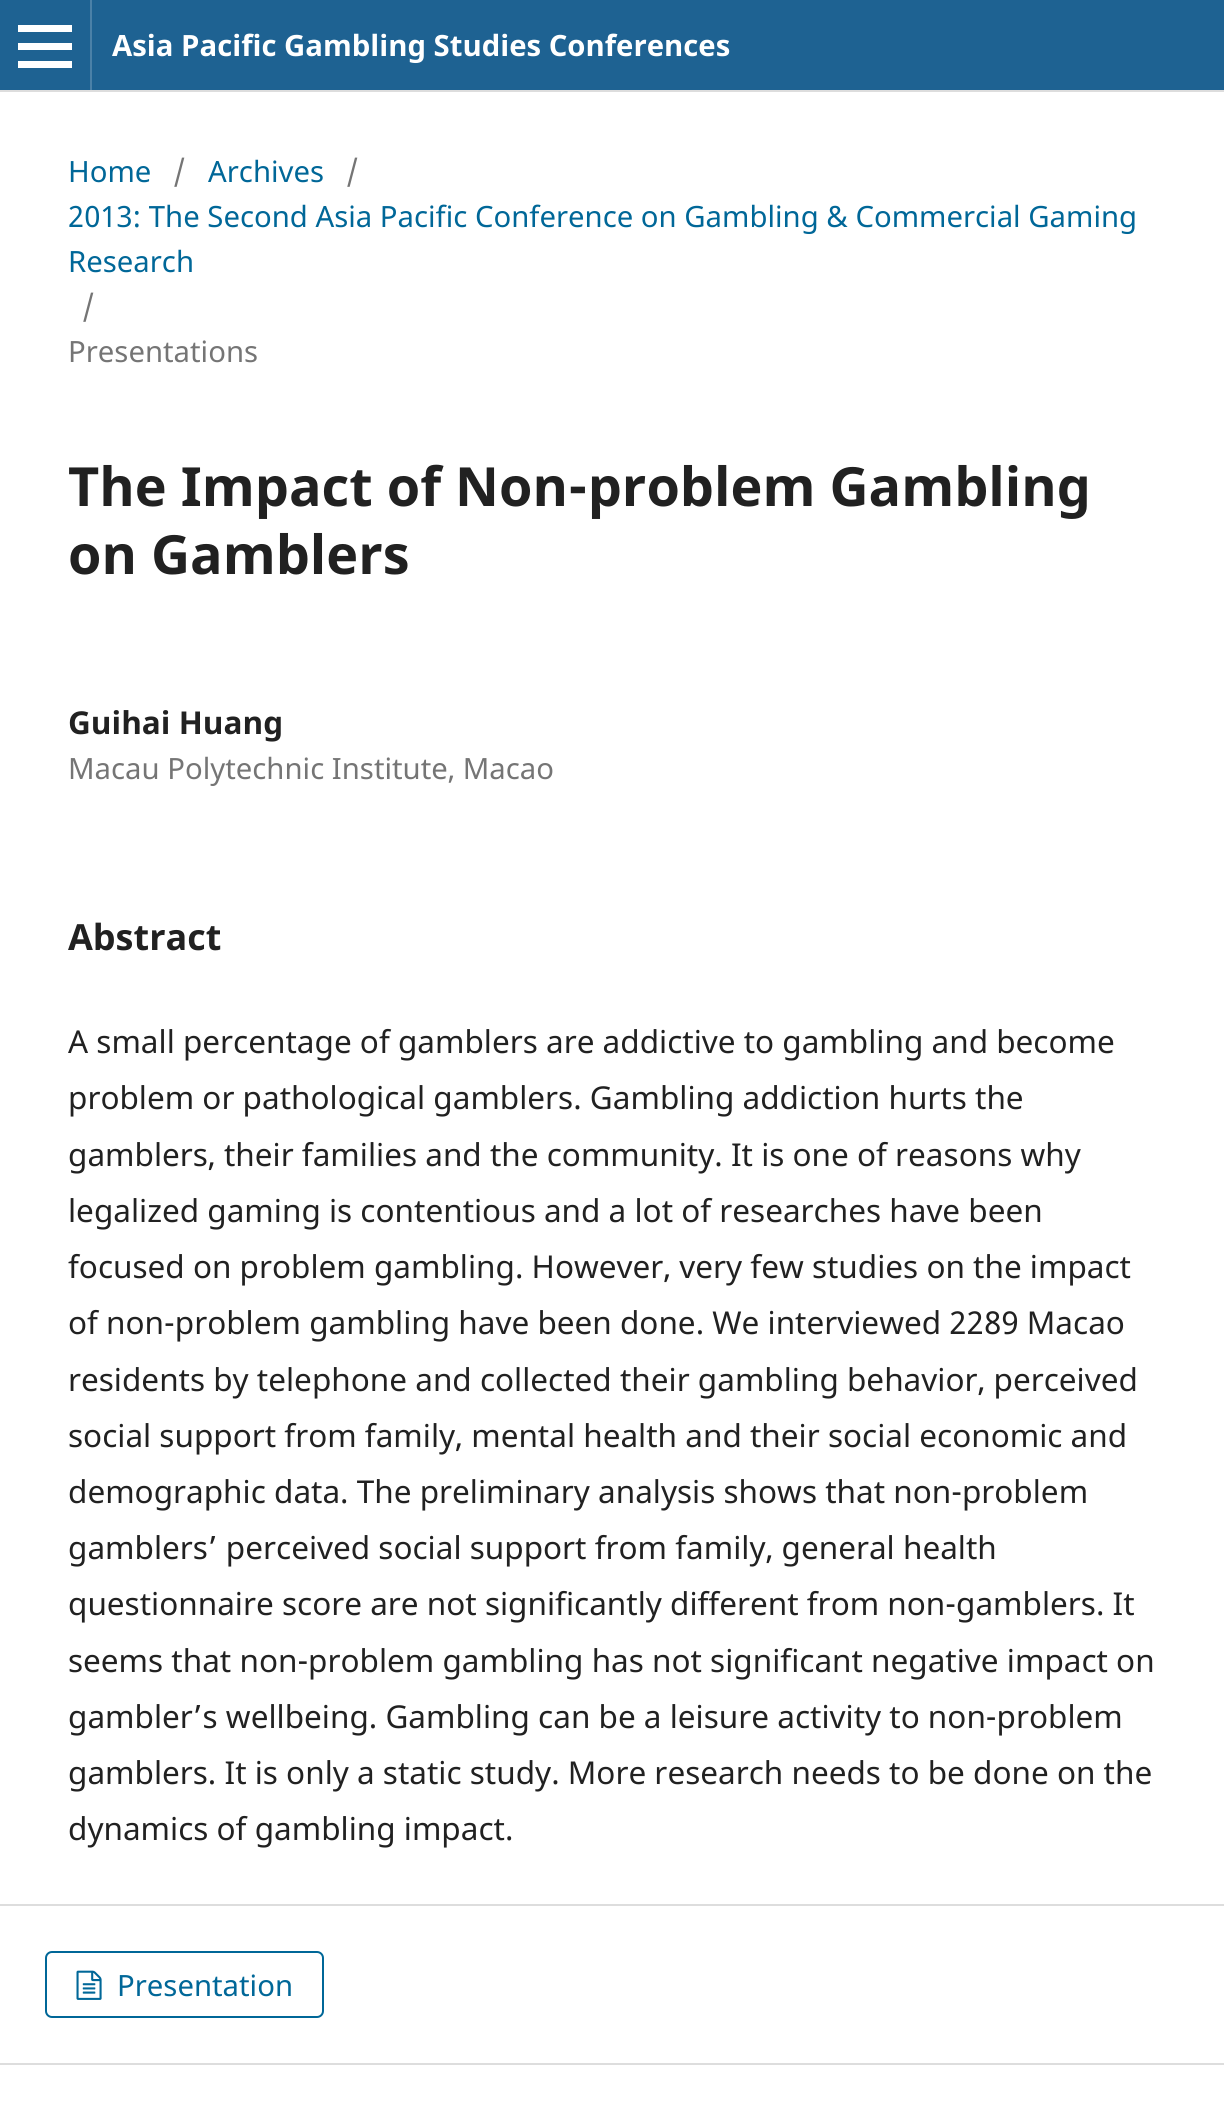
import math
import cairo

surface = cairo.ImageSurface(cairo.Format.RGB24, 1224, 2114)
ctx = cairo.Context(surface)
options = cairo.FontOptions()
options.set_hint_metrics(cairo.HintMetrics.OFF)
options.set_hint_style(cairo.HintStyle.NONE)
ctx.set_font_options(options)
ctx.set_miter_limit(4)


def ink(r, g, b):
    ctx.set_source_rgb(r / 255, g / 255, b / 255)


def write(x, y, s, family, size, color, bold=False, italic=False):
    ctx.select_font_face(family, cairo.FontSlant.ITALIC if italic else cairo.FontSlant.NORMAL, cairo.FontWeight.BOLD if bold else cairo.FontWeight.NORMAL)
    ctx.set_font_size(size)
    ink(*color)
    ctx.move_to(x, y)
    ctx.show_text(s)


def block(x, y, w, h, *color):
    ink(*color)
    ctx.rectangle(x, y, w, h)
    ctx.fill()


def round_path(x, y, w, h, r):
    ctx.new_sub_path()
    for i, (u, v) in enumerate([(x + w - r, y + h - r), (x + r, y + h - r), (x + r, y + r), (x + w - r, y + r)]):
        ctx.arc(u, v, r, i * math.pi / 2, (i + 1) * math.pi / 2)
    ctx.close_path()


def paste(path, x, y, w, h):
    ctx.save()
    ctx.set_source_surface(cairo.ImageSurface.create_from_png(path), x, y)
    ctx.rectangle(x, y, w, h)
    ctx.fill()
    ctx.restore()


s1 = dict(family="Noto Sans", size=29.3, color=(255, 255, 255), bold=True)
s2 = dict(family="Noto Sans", size=29.3, color=(0, 103, 152))
s3 = dict(family="Noto Sans", size=29.3, color=(117, 117, 117))
s4 = dict(family="Noto Sans", size=54, color=(33, 33, 33), bold=True)
s5 = dict(family="Noto Sans", size=31.5, color=(33, 33, 33), bold=True)
s6 = dict(family="Noto Sans", size=36, color=(33, 33, 33), bold=True)
s7 = dict(family="Noto Sans", size=31.5, color=(33, 33, 33))

ink(255, 255, 255)
ctx.paint()
block(0, 0, 1224, 90, 30, 98, 146)
block(0, 90, 1224, 2, 221, 221, 221)
block(90, 0, 2, 90, 75, 129, 168)
block(18, 61, 54, 7, 255, 255, 255)
block(18, 25, 54, 7, 255, 255, 255)
block(18, 43, 54, 7, 255, 255, 255)
write(112, 56, "Asia Pacific Gambling Studies Conferences", **s1)
write(68, 182, "Home", **s2)
write(173, 182, "/", **s3)
write(208, 182, "Archives", **s2)
write(346, 182, "/", **s3)
write(68, 227, "2013: The Second Asia Pacific Conference on Gambling & Commercial Gaming", **s2)
write(68, 272, "Research", **s2)
write(82, 317, "/", **s3)
write(68, 362, "Presentations", **s3)
write(68, 506, "The Impact of Non-problem Gambling", **s4)
write(68, 574, "on Gamblers", **s4)
write(68, 734, "Guihai Huang", **s5)
write(68, 779, "Macau Polytechnic Institute, Macao", **s3)
write(68, 950, "Abstract", **s6)
write(68, 1053, "A small percentage of gamblers are addictive to gambling and become", **s7)
write(68, 1109, "problem or pathological gamblers. Gambling addiction hurts the", **s7)
write(68, 1166, "gamblers, their families and the community. It is one of reasons why", **s7)
write(68, 1222, "legalized gaming is contentious and a lot of researches have been", **s7)
write(68, 1278, "focused on problem gambling. However, very few studies on the impact", **s7)
write(68, 1334, "of non-problem gambling have been done. We interviewed 2289 Macao", **s7)
write(68, 1391, "residents by telephone and collected their gambling behavior, perceived", **s7)
write(68, 1447, "social support from family, mental health and their social economic and", **s7)
write(68, 1503, "demographic data. The preliminary analysis shows that non-problem", **s7)
write(68, 1559, "gamblers’ perceived social support from family, general health", **s7)
write(68, 1615, "questionnaire score are not significantly different from non-gamblers. It", **s7)
write(68, 1672, "seems that non-problem gambling has not significant negative impact on", **s7)
write(68, 1728, "gambler’s wellbeing. Gambling can be a leisure activity to non-problem", **s7)
write(68, 1784, "gamblers. It is only a static study. More research needs to be done on the", **s7)
write(68, 1840, "dynamics of gambling impact.", **s7)
block(0, 1904, 1224, 2, 221, 221, 221)
block(0, 2063, 1224, 2, 221, 221, 221)
round_path(46, 1952, 277, 65, 6)
ink(0, 103, 152)
ctx.stroke()
paste("pic1.png", 76, 1970, 26, 30)
write(117, 1996, "Presentation", **s2)
surface.write_to_png("screenshot.png")
